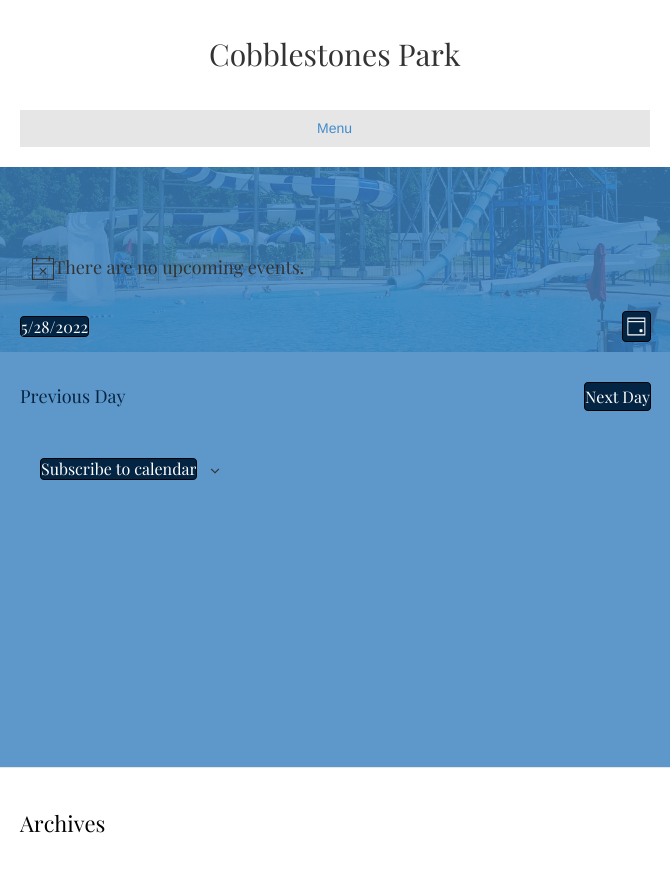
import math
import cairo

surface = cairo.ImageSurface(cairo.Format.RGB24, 670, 871)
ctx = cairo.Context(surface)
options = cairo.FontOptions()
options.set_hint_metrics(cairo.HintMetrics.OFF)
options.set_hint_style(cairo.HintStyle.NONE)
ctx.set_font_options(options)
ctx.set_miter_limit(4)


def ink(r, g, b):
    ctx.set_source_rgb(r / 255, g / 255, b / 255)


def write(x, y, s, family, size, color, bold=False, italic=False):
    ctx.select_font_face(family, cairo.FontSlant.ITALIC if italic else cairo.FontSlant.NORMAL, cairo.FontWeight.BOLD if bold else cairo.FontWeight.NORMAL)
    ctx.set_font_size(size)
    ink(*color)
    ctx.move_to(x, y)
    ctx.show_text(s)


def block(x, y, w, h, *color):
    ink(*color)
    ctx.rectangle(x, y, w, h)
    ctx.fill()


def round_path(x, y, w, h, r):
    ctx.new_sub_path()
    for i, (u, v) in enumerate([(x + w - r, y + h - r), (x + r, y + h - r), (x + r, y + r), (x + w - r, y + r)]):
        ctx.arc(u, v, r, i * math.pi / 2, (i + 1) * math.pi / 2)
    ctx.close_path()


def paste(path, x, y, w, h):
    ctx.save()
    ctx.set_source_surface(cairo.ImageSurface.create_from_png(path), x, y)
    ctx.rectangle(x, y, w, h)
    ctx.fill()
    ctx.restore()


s1 = dict(family="Playfair Display", size=30, color=(51, 51, 51))
s2 = dict(family="Liberation Sans", size=14, color=(66, 139, 202))
s3 = dict(family="Playfair Display", size=18, color=(51, 51, 51))
s4 = dict(family="Playfair Display", size=16, color=(255, 255, 255))
s5 = dict(family="Playfair Display", size=18, color=(3, 36, 66))
s6 = dict(family="Playfair Display", size=22, color=(0, 0, 0))

ink(242, 242, 242)
ctx.paint()
paste("pic1.png", 0, 167, 670, 185)
block(0, 0, 670, 167, 255, 255, 255)
write(209, 66, "Cobblestones Park", **s1)
block(20, 110, 630, 37, 230, 230, 230)
write(317, 133, "Menu", **s2)
ctx.set_source_rgba(0.239, 0.51, 0.749, 0.82)
ctx.rectangle(0, 167, 670, 600)
ctx.fill()
paste("pic2.png", 32, 256, 22, 24)
write(54, 274, "There are no upcoming events.", **s3)
ink(3, 36, 66)
round_path(20.5, 316.5, 68, 20, 3.5)
ctx.fill_preserve()
ink(0, 4, 7)
ctx.set_line_width(1)
ctx.stroke()
write(21, 333, "5/28/2022", **s4)
ink(3, 36, 66)
round_path(622.5, 311.5, 28, 30, 3.5)
ctx.fill_preserve()
ink(0, 4, 7)
ctx.stroke()
paste("pic3.png", 627, 317, 19, 19)
write(20, 403, "Previous Day", **s5)
round_path(584.5, 382.5, 66, 28, 3.5)
ctx.fill_preserve()
ink(0, 4, 7)
ctx.stroke()
write(585, 403, "Next Day", **s4)
ink(3, 36, 66)
round_path(40.5, 458.5, 156, 21, 3.5)
ctx.fill_preserve()
ink(0, 4, 7)
ctx.stroke()
write(41, 475, "Subscribe to calendar", **s4)
paste("pic4.png", 210, 468, 10, 6)
block(0, 768, 670, 103, 255, 255, 255)
block(0, 767, 670, 1, 230, 230, 230)
write(20, 832, "Archives", **s6)
surface.write_to_png("screenshot.png")
